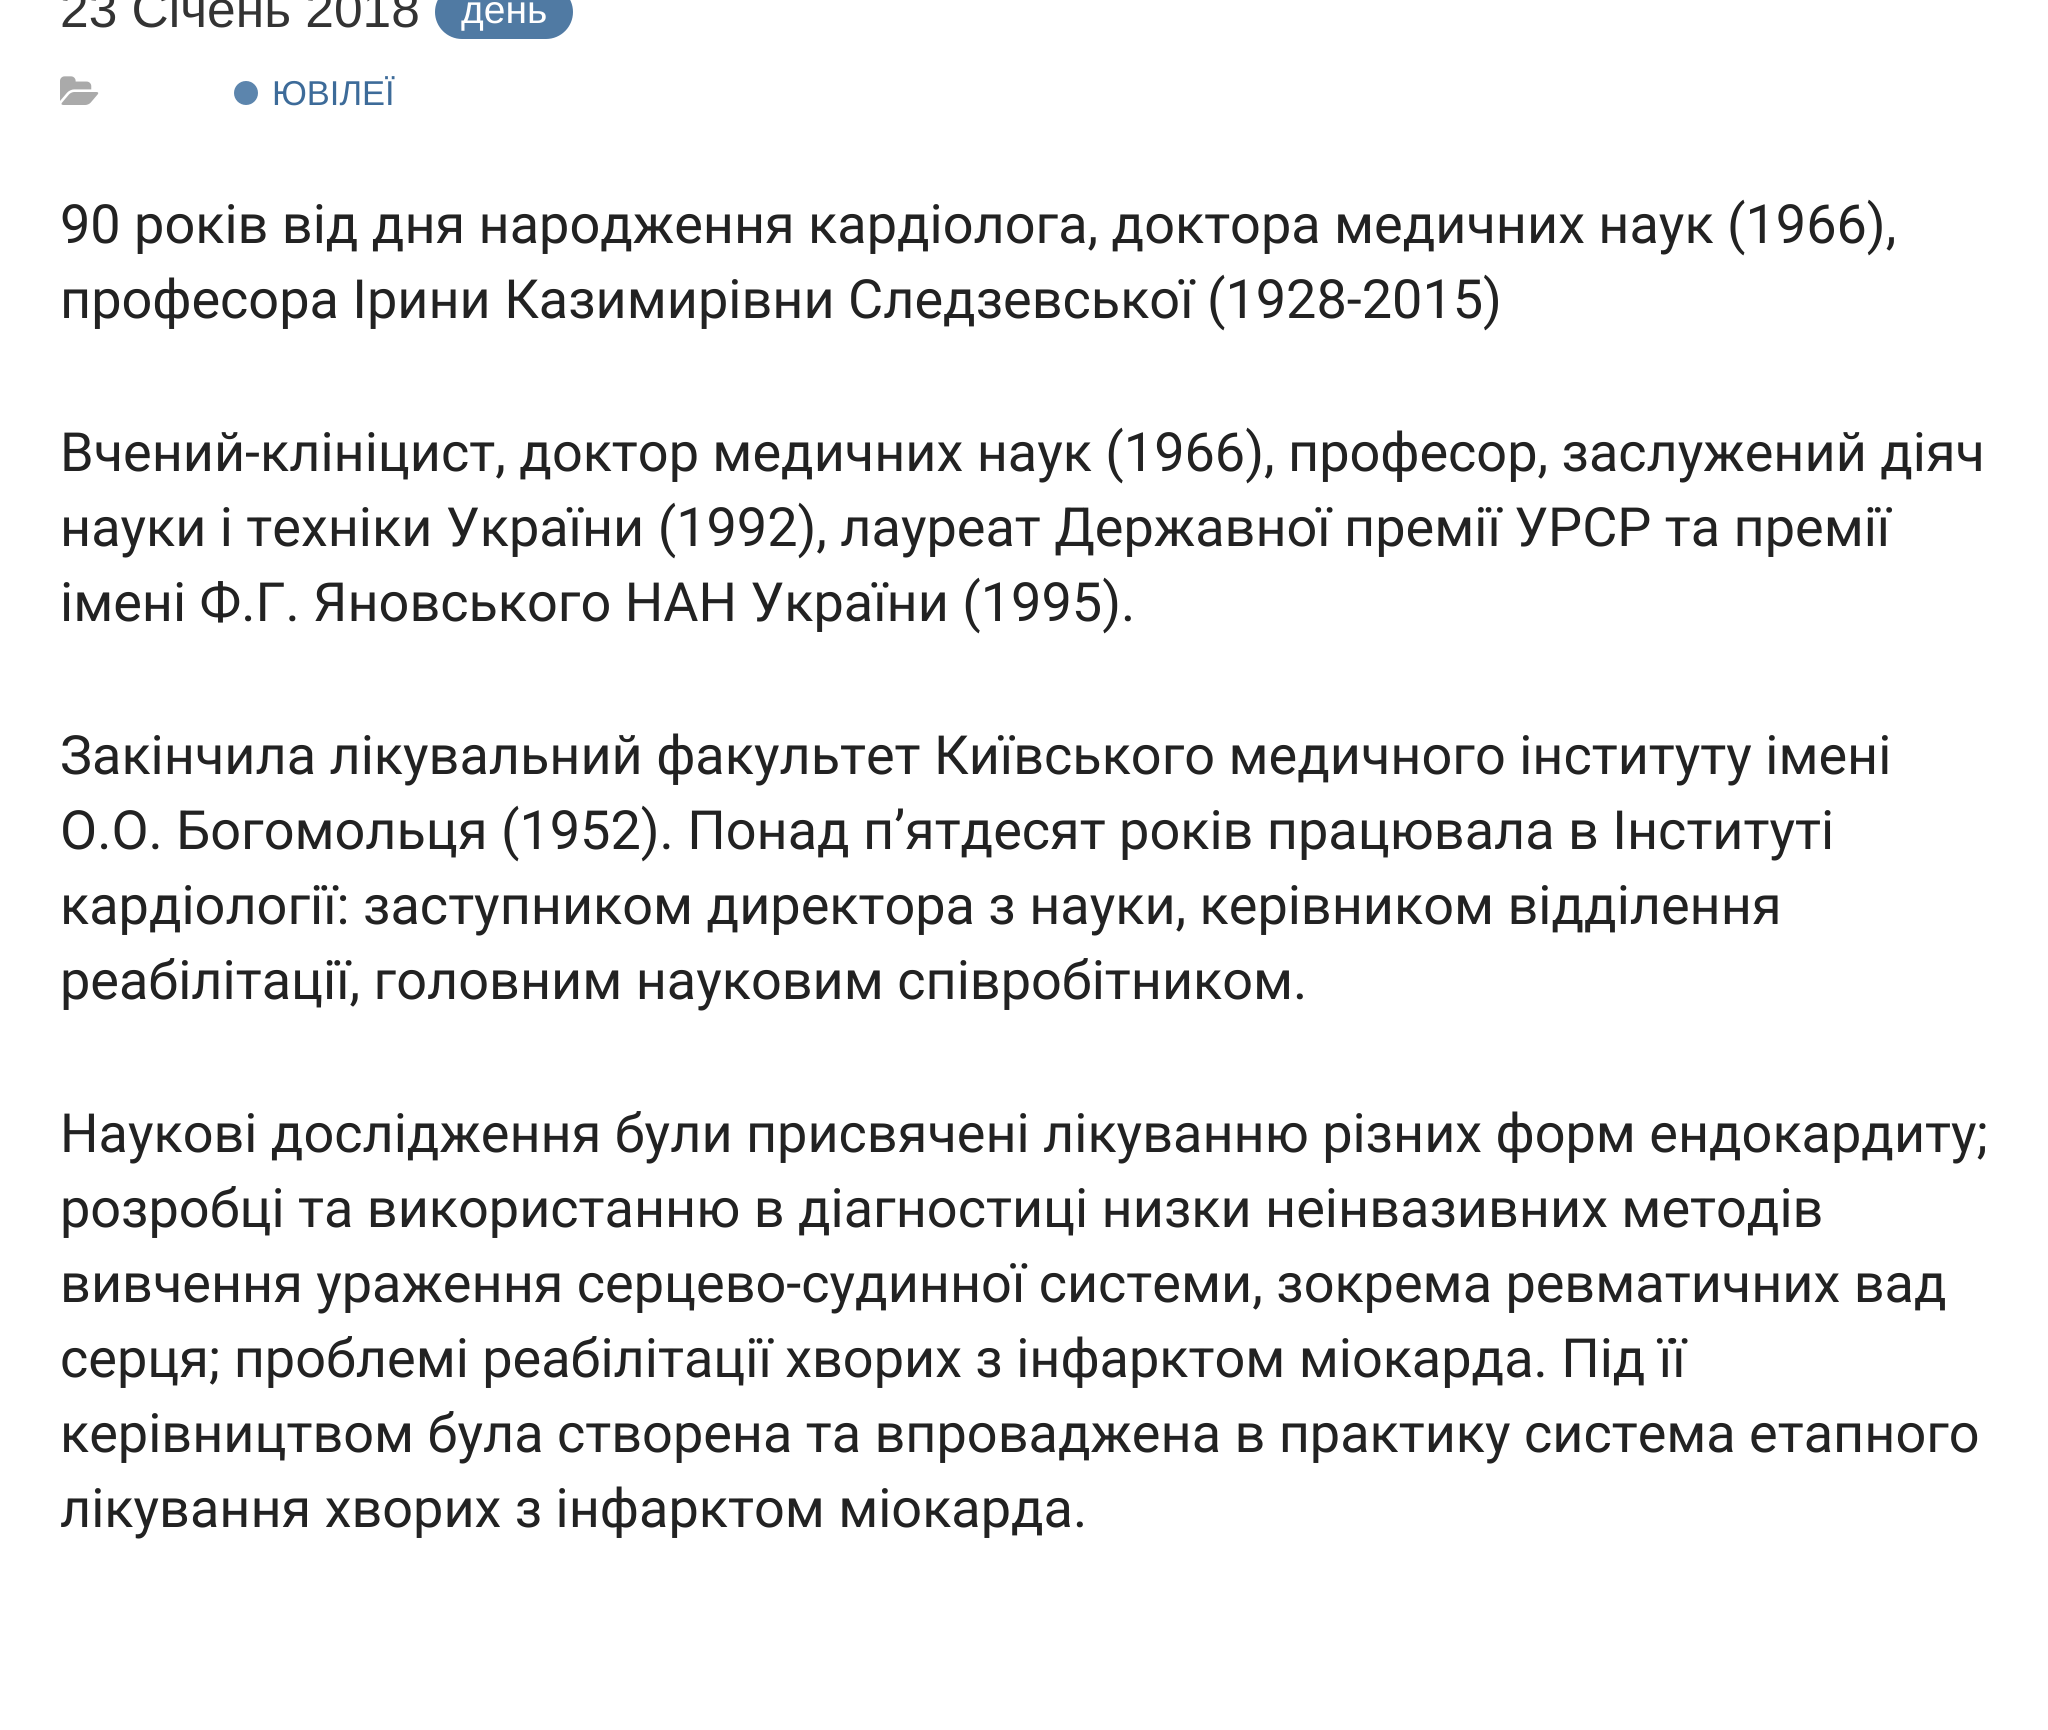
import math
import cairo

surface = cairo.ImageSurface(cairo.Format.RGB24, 2048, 1730)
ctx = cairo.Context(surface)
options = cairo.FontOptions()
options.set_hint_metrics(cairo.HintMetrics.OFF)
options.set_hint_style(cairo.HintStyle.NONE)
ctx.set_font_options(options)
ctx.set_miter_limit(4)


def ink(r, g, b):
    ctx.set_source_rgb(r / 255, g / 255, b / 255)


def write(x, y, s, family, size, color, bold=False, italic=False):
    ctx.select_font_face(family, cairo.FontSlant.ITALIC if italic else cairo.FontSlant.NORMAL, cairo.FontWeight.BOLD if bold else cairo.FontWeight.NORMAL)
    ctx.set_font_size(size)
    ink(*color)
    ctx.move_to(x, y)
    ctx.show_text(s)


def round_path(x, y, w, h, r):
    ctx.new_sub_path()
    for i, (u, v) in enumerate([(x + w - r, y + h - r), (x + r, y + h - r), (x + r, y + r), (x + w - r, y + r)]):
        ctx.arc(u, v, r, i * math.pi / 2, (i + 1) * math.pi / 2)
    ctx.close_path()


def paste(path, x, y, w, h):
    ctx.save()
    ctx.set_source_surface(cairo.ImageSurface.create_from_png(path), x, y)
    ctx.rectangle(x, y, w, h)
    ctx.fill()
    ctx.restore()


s1 = dict(family="Liberation Sans", size=51.5, color=(51, 51, 51))
s2 = dict(family="Liberation Sans", size=39, color=(255, 255, 255))
s3 = dict(family="Liberation Sans", size=34.5, color=(61, 107, 153))
s4 = dict(family="Roboto", size=54, color=(34, 34, 34))

ink(255, 255, 255)
ctx.paint()
write(60, 27, "23 Січень 2018", **s1)
ink(80, 122, 163)
round_path(435, -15, 138, 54, 27)
ctx.fill()
write(461, 23, "день", **s2)
paste("pic1.png", 60, 76, 39, 29)
ink(92, 133, 173)
ctx.arc(246, 93, 12, 0, 2 * math.pi)
ctx.fill()
write(272, 105, "ЮВІЛЕЇ", **s3)
write(60, 243, "90 років від дня народження кардіолога, доктора медичних наук (1966),", **s4)
write(60, 318, "професора Ірини Казимирівни Следзевської (1928-2015)", **s4)
write(60, 471, "Вчений-клініцист, доктор медичних наук (1966), професор, заслужений діяч", **s4)
write(60, 546, "науки і техніки України (1992), лауреат Державної премії УРСР та премії", **s4)
write(60, 621, "імені Ф.Г. Яновського НАН України (1995).", **s4)
write(60, 774, "Закінчила лікувальний факультет Київського медичного інституту імені", **s4)
write(60, 849, "О.О. Богомольця (1952). Понад п’ятдесят років працювала в Інституті", **s4)
write(60, 924, "кардіології: заступником директора з науки, керівником відділення", **s4)
write(60, 999, "реабілітації, головним науковим співробітником.", **s4)
write(60, 1152, "Наукові дослідження були присвячені лікуванню різних форм ендокардиту;", **s4)
write(60, 1227, "розробці та використанню в діагностиці низки неінвазивних методів", **s4)
write(60, 1302, "вивчення ураження серцево-судинної системи, зокрема ревматичних вад", **s4)
write(60, 1377, "серця; проблемі реабілітації хворих з інфарктом міокарда. Під її", **s4)
write(60, 1452, "керівництвом була створена та впроваджена в практику система етапного", **s4)
write(60, 1527, "лікування хворих з інфарктом міокарда.", **s4)
surface.write_to_png("screenshot.png")
